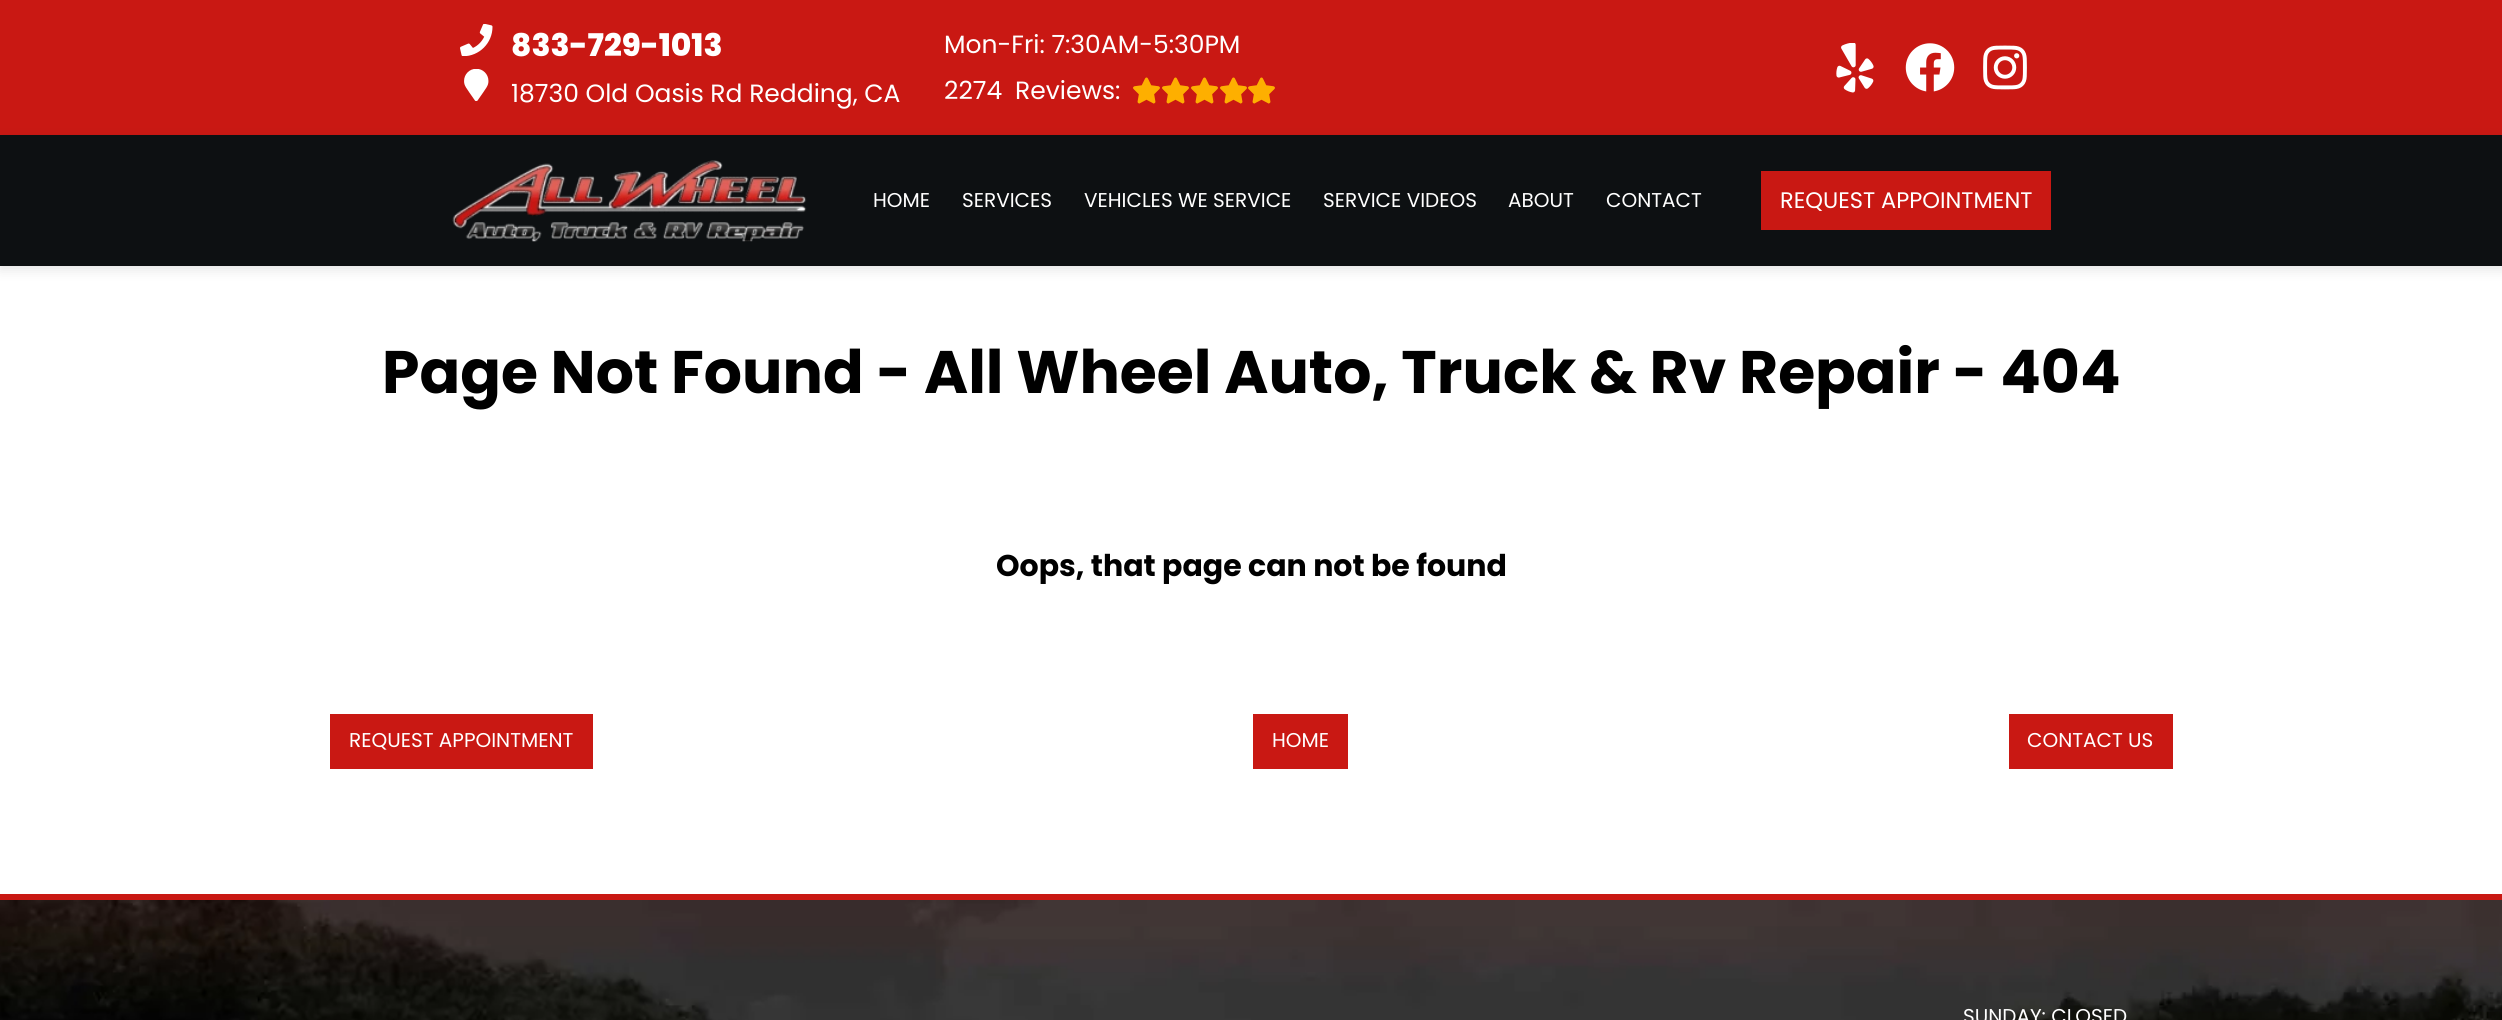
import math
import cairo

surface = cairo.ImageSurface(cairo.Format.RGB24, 2502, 1020)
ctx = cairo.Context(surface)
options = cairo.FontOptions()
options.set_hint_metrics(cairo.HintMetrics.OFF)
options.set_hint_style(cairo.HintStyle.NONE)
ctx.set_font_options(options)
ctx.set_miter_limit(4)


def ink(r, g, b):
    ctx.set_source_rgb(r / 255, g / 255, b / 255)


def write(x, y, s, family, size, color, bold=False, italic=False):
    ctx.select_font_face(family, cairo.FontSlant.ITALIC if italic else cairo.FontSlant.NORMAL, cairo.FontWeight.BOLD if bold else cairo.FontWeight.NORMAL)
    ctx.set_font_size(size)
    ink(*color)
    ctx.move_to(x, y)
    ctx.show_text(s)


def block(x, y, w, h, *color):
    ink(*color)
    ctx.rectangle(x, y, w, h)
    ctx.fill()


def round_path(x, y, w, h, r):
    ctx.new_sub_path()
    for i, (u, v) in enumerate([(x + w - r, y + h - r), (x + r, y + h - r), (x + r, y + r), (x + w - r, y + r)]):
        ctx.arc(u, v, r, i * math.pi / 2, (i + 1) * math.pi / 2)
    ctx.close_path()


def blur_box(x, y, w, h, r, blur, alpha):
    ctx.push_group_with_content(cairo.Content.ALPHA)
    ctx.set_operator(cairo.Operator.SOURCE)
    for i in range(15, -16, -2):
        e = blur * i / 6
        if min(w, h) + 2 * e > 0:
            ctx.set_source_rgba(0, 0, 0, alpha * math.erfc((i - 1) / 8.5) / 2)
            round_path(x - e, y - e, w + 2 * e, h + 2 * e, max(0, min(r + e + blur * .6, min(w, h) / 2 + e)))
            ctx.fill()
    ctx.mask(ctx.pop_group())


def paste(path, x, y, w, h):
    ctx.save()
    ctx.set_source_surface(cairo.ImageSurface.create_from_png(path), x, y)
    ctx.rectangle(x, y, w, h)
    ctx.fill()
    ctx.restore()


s1 = dict(family="Poppins ExtraBold", size=31.25, color=(255, 255, 255))
s2 = dict(family="Poppins", size=25, color=(255, 255, 255))
s3 = dict(family="Poppins", size=20, color=(255, 255, 255))
s4 = dict(family="Poppins", size=22.5, color=(255, 255, 255))
s5 = dict(family="Poppins", size=60, color=(0, 0, 0), bold=True)
s6 = dict(family="Poppins", size=30, color=(0, 0, 0), bold=True)

ink(255, 255, 255)
ctx.paint()
block(0, 0, 2502, 135, 201, 24, 19)
paste("pic1.png", 460, 24, 33, 32)
write(511, 56, "833-729-1013", **s1)
paste("pic2.png", 464, 69, 25, 32)
write(511, 102, "18730 Old Oasis Rd Redding, CA", **s2)
write(944, 53, "Mon-Fri: 7:30AM-5:30PM", **s2)
write(944, 99, "2274", **s2)
write(1015, 99, "Reviews:", **s2)
paste("pic3.png", 1133, 77, 142, 27)
paste("pic4.png", 1836, 43, 38, 50)
paste("pic5.png", 1905, 43, 50, 49)
paste("pic6.png", 1983, 45, 44, 45)
ink(0, 0, 0)
blur_box(0, 139, 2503, 131, 0, 6, 0.1)
block(0, 135, 2502, 131, 13, 16, 18)
paste("pic7.png", 452, 160, 355, 82)
write(873, 207, "HOME", **s3)
write(962, 207, "SERVICES", **s3)
write(1084, 207, "VEHICLES WE SERVICE", **s3)
write(1323, 207, "SERVICE VIDEOS", **s3)
write(1508, 207, "ABOUT", **s3)
write(1606, 207, "CONTACT", **s3)
block(1761, 171, 290, 59, 201, 24, 19)
write(1780, 208, "REQUEST APPOINTMENT", **s4)
write(382, 393, "Page Not Found - All Wheel Auto, Truck & Rv Repair - 404", **s5)
write(996, 576, "Oops, that page can not be found", **s6)
block(330, 714, 263, 55, 201, 24, 19)
write(349, 747, "REQUEST APPOINTMENT", **s3)
block(1253, 714, 95, 55, 201, 24, 19)
write(1272, 747, "HOME", **s3)
block(2009, 714, 164, 55, 201, 24, 19)
write(2027, 747, "CONTACT US", **s3)
paste("pic8.png", 0, 900, 2502, 120)
block(0, 894, 2502, 6, 201, 24, 19)
write(1963, 1023, "SUNDAY: CLOSED", **s3)
surface.write_to_png("screenshot.png")
